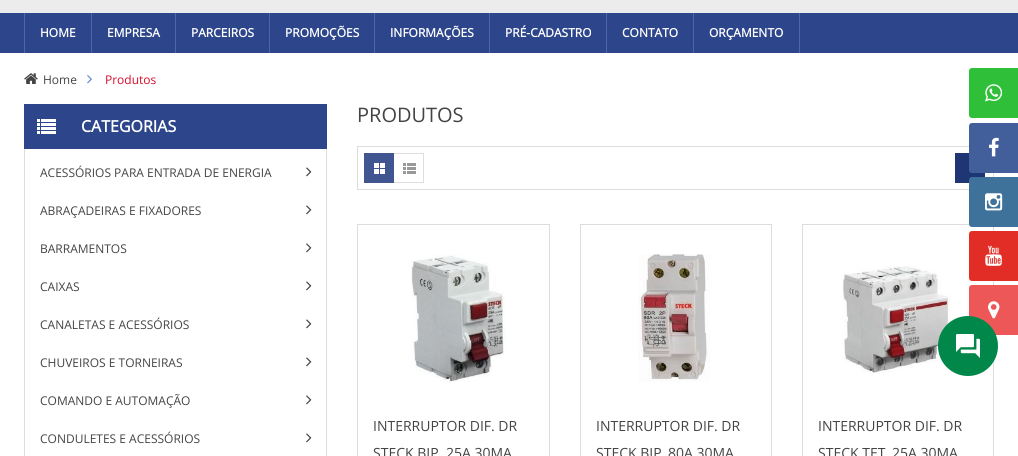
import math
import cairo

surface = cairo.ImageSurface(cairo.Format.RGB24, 1018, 456)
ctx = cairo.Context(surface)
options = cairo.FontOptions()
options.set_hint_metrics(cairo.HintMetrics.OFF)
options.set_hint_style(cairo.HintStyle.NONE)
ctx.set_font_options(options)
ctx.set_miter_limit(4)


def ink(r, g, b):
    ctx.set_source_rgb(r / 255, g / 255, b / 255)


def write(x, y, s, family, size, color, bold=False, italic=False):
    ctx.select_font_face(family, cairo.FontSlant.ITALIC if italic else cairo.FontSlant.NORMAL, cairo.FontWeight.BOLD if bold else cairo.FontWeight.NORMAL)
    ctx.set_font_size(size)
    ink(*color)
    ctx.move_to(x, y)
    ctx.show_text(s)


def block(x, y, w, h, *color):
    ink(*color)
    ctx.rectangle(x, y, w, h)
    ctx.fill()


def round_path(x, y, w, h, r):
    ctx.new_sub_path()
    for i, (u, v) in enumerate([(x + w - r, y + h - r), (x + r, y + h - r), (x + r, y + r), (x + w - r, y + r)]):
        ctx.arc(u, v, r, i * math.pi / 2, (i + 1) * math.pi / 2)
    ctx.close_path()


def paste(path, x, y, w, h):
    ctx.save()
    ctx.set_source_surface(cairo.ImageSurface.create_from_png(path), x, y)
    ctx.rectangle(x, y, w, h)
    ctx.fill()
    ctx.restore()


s1 = dict(family="Open Sans", size=12, color=(255, 255, 255), bold=True)
s2 = dict(family="Open Sans", size=12, color=(68, 68, 68))
s3 = dict(family="Open Sans", size=12, color=(217, 13, 43))
s4 = dict(family="Open Sans", size=16, color=(255, 255, 255), bold=True)
s5 = dict(family="Open Sans", size=20, color=(68, 68, 68))
s6 = dict(family="Open Sans", size=14, color=(68, 68, 68))

ink(255, 255, 255)
ctx.paint()
block(0, 0, 1018, 13, 236, 236, 236)
block(0, 13, 1018, 40, 44, 69, 139)
block(91, 13, 1, 40, 75, 106, 165)
block(24, 13, 1, 40, 75, 106, 165)
write(40, 37, "HOME", **s1)
block(175, 13, 1, 40, 75, 106, 165)
write(107, 37, "EMPRESA", **s1)
block(269, 13, 1, 40, 75, 106, 165)
write(191, 37, "PARCEIROS", **s1)
block(374, 13, 1, 40, 75, 106, 165)
write(285, 37, "PROMOÇÕES", **s1)
block(489, 13, 1, 40, 75, 106, 165)
write(390, 37, "INFORMAÇÕES", **s1)
block(606, 13, 1, 40, 75, 106, 165)
write(505, 37, "PRÉ-CADASTRO", **s1)
block(693, 13, 1, 40, 75, 106, 165)
write(622, 37, "CONTATO", **s1)
block(799, 13, 1, 40, 75, 106, 165)
write(709, 37, "ORÇAMENTO", **s1)
paste("pic1.png", 24, 73, 14, 11)
write(43, 84, "Home", **s2)
paste("pic2.png", 87, 75, 5, 9)
write(105, 84, "Produtos", **s3)
block(24, 104, 303, 45, 44, 69, 139)
paste("pic3.png", 37, 119, 19, 15)
write(81, 132, "CATEGORIAS", **s4)
block(326, 149, 1, 307, 221, 221, 221)
block(24, 149, 1, 307, 221, 221, 221)
write(40, 177, "ACESSÓRIOS PARA ENTRADA DE ENERGIA", **s2)
paste("pic4.png", 306, 167, 6, 10)
write(40, 215, "ABRAÇADEIRAS E FIXADORES", **s2)
paste("pic4.png", 306, 205, 6, 10)
write(40, 253, "BARRAMENTOS", **s2)
paste("pic4.png", 306, 243, 6, 10)
write(40, 291, "CAIXAS", **s2)
paste("pic4.png", 306, 281, 6, 10)
write(40, 329, "CANALETAS E ACESSÓRIOS", **s2)
paste("pic4.png", 306, 319, 6, 10)
write(40, 367, "CHUVEIROS E TORNEIRAS", **s2)
paste("pic4.png", 306, 357, 6, 10)
write(40, 405, "COMANDO E AUTOMAÇÃO", **s2)
paste("pic4.png", 306, 395, 6, 10)
write(40, 443, "CONDULETES E ACESSÓRIOS", **s2)
paste("pic4.png", 306, 433, 6, 10)
write(357, 122, "PRODUTOS", **s5)
ctx.rectangle(357.5, 146.5, 636, 43)
ink(221, 221, 221)
ctx.set_line_width(1)
ctx.stroke()
paste("pic5.png", 364, 153, 30, 30)
paste("pic6.png", 394, 153, 30, 30)
block(955, 153, 30, 30, 31, 54, 116)
ctx.rectangle(357.5, 224.5, 192, 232)
ink(221, 221, 221)
ctx.stroke()
paste("pic7.png", 411, 254, 95, 128)
write(373, 431, "INTERRUPTOR DIF. DR", **s6)
write(373, 458, "STECK BIP", **s6)
write(446, 458, "25A 30MA", **s6)
ctx.rectangle(580.5, 224.5, 191, 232)
ink(221, 221, 221)
ctx.stroke()
paste("pic8.png", 638, 254, 72, 128)
write(596, 431, "INTERRUPTOR DIF. DR", **s6)
write(596, 458, "STECK BIP", **s6)
write(668, 458, "80A 30MA", **s6)
ctx.rectangle(802.5, 224.5, 191, 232)
ink(221, 221, 221)
ctx.stroke()
paste("pic9.png", 842, 266, 109, 107)
write(818, 431, "INTERRUPTOR DIF. DR", **s6)
write(818, 458, "STECK TET", **s6)
write(892, 458, "25A 30MA", **s6)
ink(48, 191, 57)
round_path(969, 68, 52, 50, 3)
ctx.fill()
paste("pic10.png", 985, 84, 18, 18)
ink(66, 95, 156)
round_path(969, 123, 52, 50, 3)
ctx.fill()
paste("pic11.png", 989, 137, 10, 20)
ink(63, 114, 155)
round_path(969, 177, 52, 50, 3)
ctx.fill()
paste("pic12.png", 985, 193, 18, 18)
ink(226, 45, 38)
round_path(969, 231, 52, 50, 3)
ctx.fill()
paste("pic13.png", 985, 245, 17, 21)
ink(237, 87, 87)
round_path(969, 285, 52, 50, 3)
ctx.fill()
paste("pic14.png", 988, 301, 12, 18)
ink(0, 135, 73)
ctx.arc(968, 346, 30, 0, 2 * math.pi)
ctx.fill()
paste("pic15.png", 956, 334, 24, 24)
surface.write_to_png("screenshot.png")
